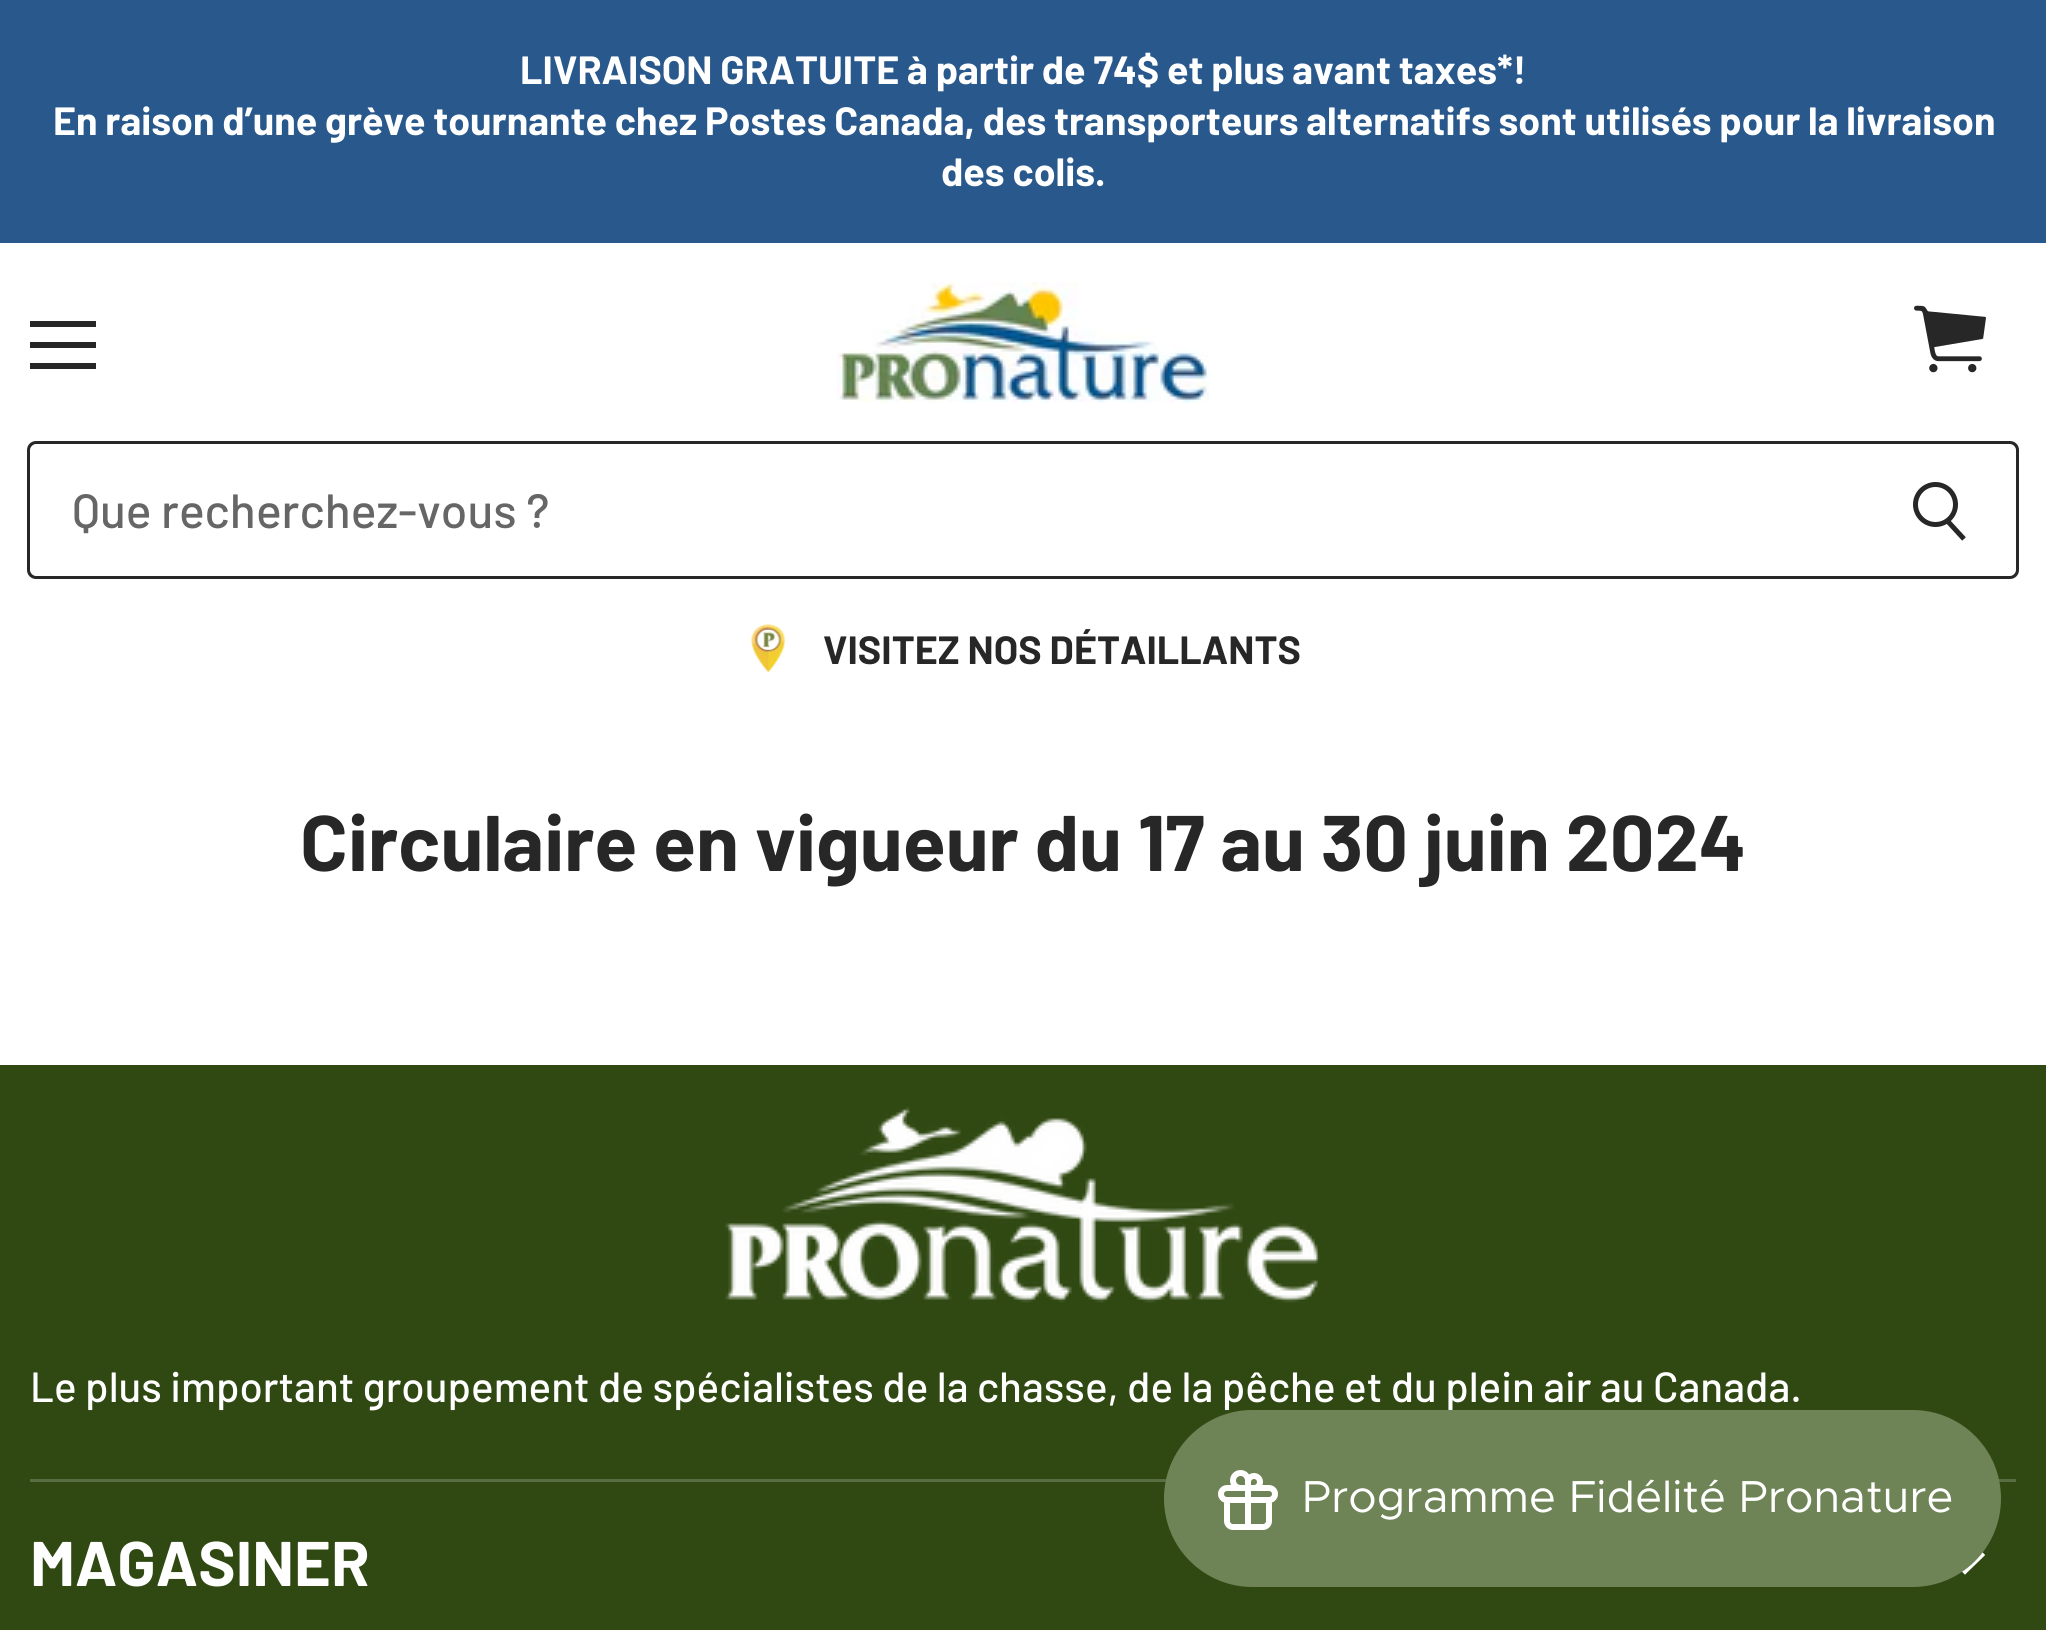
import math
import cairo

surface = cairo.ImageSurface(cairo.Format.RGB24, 2046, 1630)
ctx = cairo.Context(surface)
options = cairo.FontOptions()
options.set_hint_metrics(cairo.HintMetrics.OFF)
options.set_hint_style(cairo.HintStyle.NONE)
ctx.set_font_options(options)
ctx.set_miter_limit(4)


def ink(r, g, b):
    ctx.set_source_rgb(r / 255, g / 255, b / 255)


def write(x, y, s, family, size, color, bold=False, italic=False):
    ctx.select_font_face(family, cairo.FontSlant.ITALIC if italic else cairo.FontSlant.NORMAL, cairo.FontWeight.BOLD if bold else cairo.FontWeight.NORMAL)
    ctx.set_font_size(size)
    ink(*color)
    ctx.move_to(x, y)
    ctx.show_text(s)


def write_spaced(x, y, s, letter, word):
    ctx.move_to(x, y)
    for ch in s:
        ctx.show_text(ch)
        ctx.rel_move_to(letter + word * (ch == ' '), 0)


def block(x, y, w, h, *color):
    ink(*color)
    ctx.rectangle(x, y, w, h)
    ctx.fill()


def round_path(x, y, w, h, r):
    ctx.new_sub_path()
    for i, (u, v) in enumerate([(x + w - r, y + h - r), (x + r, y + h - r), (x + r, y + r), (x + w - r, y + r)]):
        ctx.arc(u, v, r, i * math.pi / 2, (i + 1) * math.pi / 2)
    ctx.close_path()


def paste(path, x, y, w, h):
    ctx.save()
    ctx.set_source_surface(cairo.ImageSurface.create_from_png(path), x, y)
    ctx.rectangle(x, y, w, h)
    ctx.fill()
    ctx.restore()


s1 = dict(family="Barlow", size=39.4, color=(255, 255, 255), bold=True)
s2 = dict(family="Barlow Medium", size=48, color=(102, 102, 102))
s3 = dict(family="Barlow", size=39.4, color=(39, 39, 39), bold=True)
s4 = dict(family="Barlow", size=78.75, color=(39, 39, 39), bold=True)
s5 = dict(family="Barlow Medium", size=42.2, color=(255, 255, 255))
s6 = dict(family="Barlow", size=63, color=(255, 255, 255), bold=True)
s7 = dict(family="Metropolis", size=45, color=(255, 255, 255))

ink(255, 255, 255)
ctx.paint()
block(0, 0, 2046, 243, 41, 88, 140)
ctx.select_font_face("Barlow", cairo.FontSlant.NORMAL, cairo.FontWeight.BOLD)
ctx.set_font_size(39.4)
ink(255, 255, 255)
write_spaced(520, 84, "LIVRAISON GRATUITE à partir de 74$ et plus avant taxes*!", 0, -0.1)
write_spaced(53, 135, "En raison d’une grève tournante chez Postes Canada, des transporteurs alternatifs sont utilisés pour la livraison", 0, -0.1)
write(941, 186, "des colis.", **s1)
block(30, 321, 66, 6, 39, 39, 39)
block(30, 342, 66, 6, 39, 39, 39)
block(30, 363, 66, 6, 39, 39, 39)
paste("pic1.png", 837, 282, 372, 121)
paste("pic2.png", 1914, 305, 72, 68)
ctx.set_fill_rule(cairo.FillRule.EVEN_ODD)
ctx.new_path()
ctx.move_to(36, 441)
ctx.line_to(1860, 441)
ctx.line_to(1860, 579)
ctx.line_to(36, 579)
ctx.curve_to(31, 579, 27, 575, 27, 570)
ctx.line_to(27, 450)
ctx.curve_to(27, 445, 31, 441, 36, 441)
ctx.close_path()
ctx.move_to(36, 444)
ctx.line_to(1860, 444)
ctx.line_to(1860, 576)
ctx.line_to(36, 576)
ctx.curve_to(33, 576, 30, 573, 30, 570)
ctx.line_to(30, 450)
ctx.curve_to(30, 447, 33, 444, 36, 444)
ctx.close_path()
ctx.fill()
write(72, 528, "Que recherchez-vous ?", **s2)
ink(39, 39, 39)
ctx.new_path()
ctx.move_to(1860, 441)
ctx.line_to(2010, 441)
ctx.curve_to(2015, 441, 2019, 445, 2019, 450)
ctx.line_to(2019, 570)
ctx.curve_to(2019, 575, 2015, 579, 2010, 579)
ctx.line_to(1860, 579)
ctx.close_path()
ctx.move_to(1860, 444)
ctx.line_to(2010, 444)
ctx.curve_to(2013, 444, 2016, 447, 2016, 450)
ctx.line_to(2016, 570)
ctx.curve_to(2016, 573, 2013, 576, 2010, 576)
ctx.line_to(1860, 576)
ctx.close_path()
ctx.fill()
ctx.new_path()
ctx.move_to(1964, 539)
ctx.line_to(1947, 520.5)
ctx.set_line_width(5)
ctx.stroke()
ctx.arc(1935.5, 504.5, 20, 0, 2 * math.pi)
ctx.stroke()
paste("pic3.png", 750, 624, 36, 48)
write(823, 664, "VISITEZ NOS DÉTAILLANTS", **s3)
write(300, 871, "Circulaire en vigueur du 17 au 30 juin 2024", **s4)
block(0, 1065, 2046, 565, 48, 73, 19)
block(30, 1479, 1986, 3, 89, 109, 66)
paste("pic4.png", 725, 1106, 595, 197)
write(30, 1402, "Le plus important groupement de spécialistes de la chasse, de la pêche et du plein air au Canada.", **s5)
write(30, 1586, "MAGASINER", **s6)
ctx.new_path()
ctx.move_to(1965, 1571)
ctx.line_to(1981.5, 1555)
ctx.move_to(1965, 1571)
ctx.line_to(1948.5, 1555)
ctx.set_line_width(5.2)
ctx.set_line_cap(cairo.LineCap.SQUARE)
ctx.stroke()
ink(111, 132, 86)
round_path(1164, 1410, 837, 177, 88.5)
ctx.fill()
paste("pic5.png", 1218, 1470, 60, 60)
write(1302, 1512, "Programme Fidélité Pronature", **s7)
surface.write_to_png("screenshot.png")
